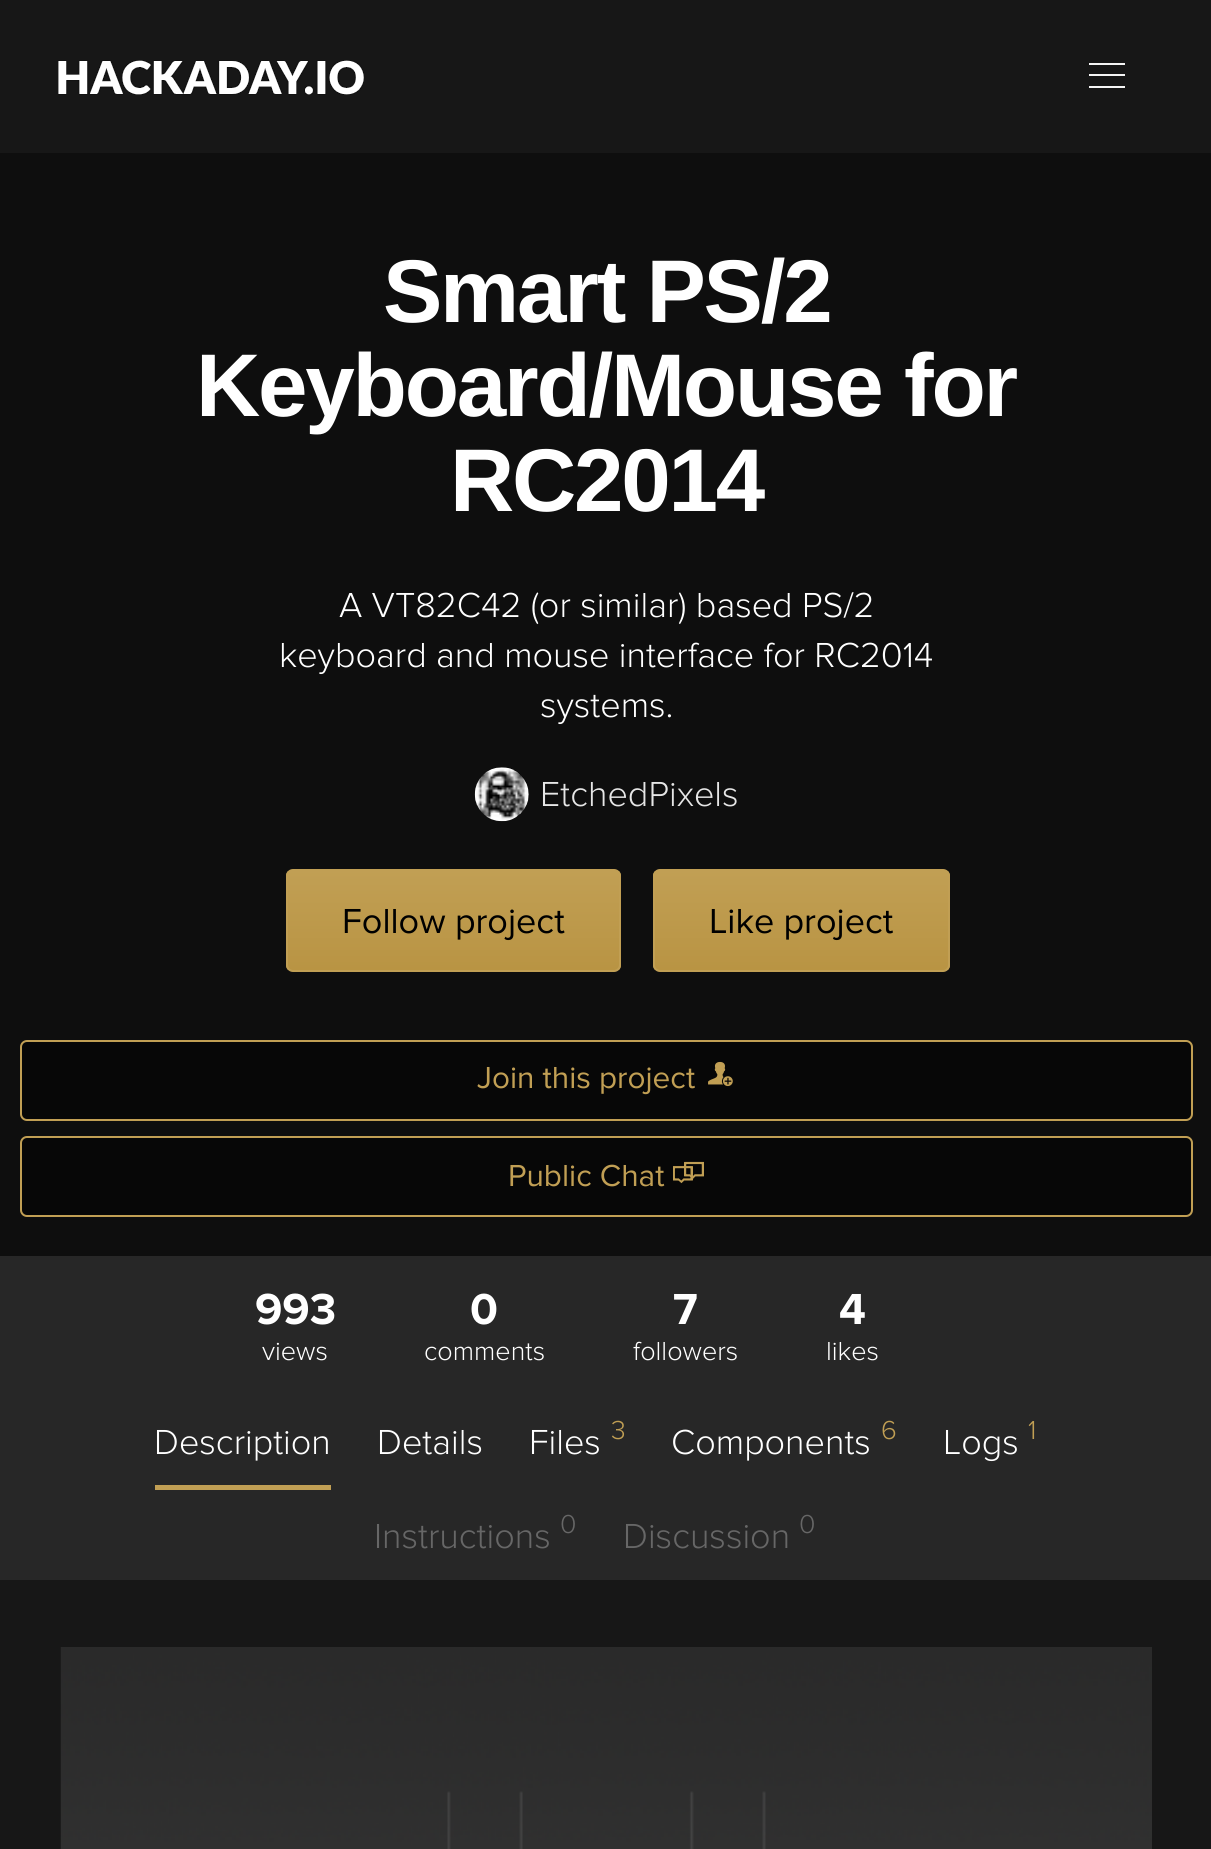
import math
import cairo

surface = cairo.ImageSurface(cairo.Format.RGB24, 1211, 1849)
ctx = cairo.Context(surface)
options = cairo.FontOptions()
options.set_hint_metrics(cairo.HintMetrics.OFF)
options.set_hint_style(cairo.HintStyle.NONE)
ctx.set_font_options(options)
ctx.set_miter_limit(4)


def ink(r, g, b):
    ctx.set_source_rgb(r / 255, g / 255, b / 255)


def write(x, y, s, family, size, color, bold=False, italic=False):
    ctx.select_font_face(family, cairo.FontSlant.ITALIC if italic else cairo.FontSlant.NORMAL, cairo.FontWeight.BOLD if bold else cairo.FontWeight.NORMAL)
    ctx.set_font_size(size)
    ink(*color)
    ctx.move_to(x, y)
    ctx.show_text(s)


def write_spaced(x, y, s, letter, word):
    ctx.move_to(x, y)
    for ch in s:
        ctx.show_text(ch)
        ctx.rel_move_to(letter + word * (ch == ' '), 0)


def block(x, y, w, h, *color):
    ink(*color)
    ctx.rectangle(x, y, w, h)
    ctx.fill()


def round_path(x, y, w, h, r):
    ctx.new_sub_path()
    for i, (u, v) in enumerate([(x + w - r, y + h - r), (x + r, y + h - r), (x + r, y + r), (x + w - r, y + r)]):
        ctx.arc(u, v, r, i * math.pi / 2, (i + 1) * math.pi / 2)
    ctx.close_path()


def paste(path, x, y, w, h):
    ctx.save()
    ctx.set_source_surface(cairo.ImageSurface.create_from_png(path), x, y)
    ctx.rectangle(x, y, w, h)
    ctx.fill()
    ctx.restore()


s1 = dict(family="Proxima Nova Light", size=36, color=(255, 255, 255))
s2 = dict(family="Proxima Nova Light", size=36, color=(230, 230, 230))
s3 = dict(family="Proxima Nova", size=36, color=(0, 0, 0))
s4 = dict(family="Proxima Nova", size=31.5, color=(193, 159, 84))
s5 = dict(family="Proxima Nova", size=45, color=(255, 255, 255), bold=True)
s6 = dict(family="Proxima Nova Light", size=27, color=(255, 255, 255))
s7 = dict(family="Proxima Nova Light", size=27, color=(193, 159, 84))
s8 = dict(family="Proxima Nova Light", size=36, color=(103, 103, 103))
s9 = dict(family="Proxima Nova Light", size=27, color=(103, 103, 103))

ink(23, 23, 23)
ctx.paint()
paste("pic1.png", 58, 60, 306, 35)
block(1089, 63, 36, 2, 245, 245, 245)
block(1089, 74, 36, 2, 245, 245, 245)
block(1089, 86, 36, 2, 245, 245, 245)
block(0, 153, 1211, 1103, 14, 14, 14)
ctx.select_font_face("Liberation Sans", cairo.FontSlant.NORMAL, cairo.FontWeight.BOLD)
ctx.set_font_size(89)
ink(255, 255, 255)
write_spaced(383, 322, "Smart PS/2", -2.25, 0)
write_spaced(196, 416, "Keyboard/Mouse for", -2.25, 0)
write_spaced(450, 511, "RC2014", -2.25, 0)
write(339, 617, "A VT82C42 (or similar) based PS/2", **s1)
write(279, 667, "keyboard and mouse interface for RC2014", **s1)
write(540, 717, "systems.", **s1)
ink(0, 0, 0)
ctx.new_path()
ctx.arc(502, 794, 27, 0, 2 * math.pi)
ctx.fill()
paste("pic2.png", 474, 767, 55, 55)
write(540, 806, "EtchedPixels", **s2)
ctx.save()
round_path(286, 869, 335, 103, 7)
ctx.clip()
gradient = cairo.LinearGradient(453, 871, 453, 970)
gradient.add_color_stop_rgba(0, 0.757, 0.624, 0.329, 1)
gradient.add_color_stop_rgba(1, 0.725, 0.58, 0.263, 1)
ctx.set_source(gradient)
ctx.rectangle(286, 871, 335, 99)
ctx.fill()
ctx.restore()
round_path(287, 870, 333, 101, 6)
ink(193, 159, 84)
ctx.stroke()
write(342, 933, "Follow project", **s3)
ctx.save()
round_path(653, 869, 297, 103, 7)
ctx.clip()
gradient = cairo.LinearGradient(801, 871, 801, 970)
gradient.add_color_stop_rgba(0, 0.757, 0.624, 0.329, 1)
gradient.add_color_stop_rgba(1, 0.725, 0.58, 0.263, 1)
ctx.set_source(gradient)
ctx.rectangle(653, 871, 297, 99)
ctx.fill()
ctx.restore()
round_path(654, 870, 295, 101, 6)
ink(193, 159, 84)
ctx.stroke()
write(709, 933, "Like project", **s3)
ink(7, 7, 7)
round_path(21, 1041, 1171, 79, 6)
ctx.fill_preserve()
ink(193, 159, 84)
ctx.stroke()
write(477, 1088, "Join this project", **s4)
paste("pic3.png", 708, 1061, 25, 26)
ink(7, 7, 7)
round_path(21, 1137, 1171, 79, 6)
ctx.fill_preserve()
ink(193, 159, 84)
ctx.stroke()
write(508, 1186, "Public Chat", **s4)
paste("pic4.png", 673, 1161, 31, 23)
block(0, 1256, 1211, 324, 39, 39, 39)
write(255, 1324, "993", **s5)
write(262, 1360, "views", **s6)
write(470, 1324, "0", **s5)
write(424, 1360, "comments", **s6)
write(673, 1324, "7", **s5)
write(633, 1360, "followers", **s6)
write(839, 1324, "4", **s5)
write(826, 1360, "likes", **s6)
block(155, 1485, 176, 5, 193, 159, 84)
write(154, 1454, "Description", **s1)
write(377, 1454, "Details", **s1)
write(529, 1454, "Files", **s1)
write(611, 1439, "3", **s7)
write(671, 1454, "Components", **s1)
write(881, 1439, "6", **s7)
write(943, 1454, "Logs", **s1)
write(1028, 1439, "1", **s7)
write(374, 1548, "Instructions", **s8)
write(560, 1533, "0", **s9)
write(623, 1548, "Discussion", **s8)
write(799, 1533, "0", **s9)
paste("pic5.png", 60, 1647, 1092, 202)
surface.write_to_png("screenshot.png")
